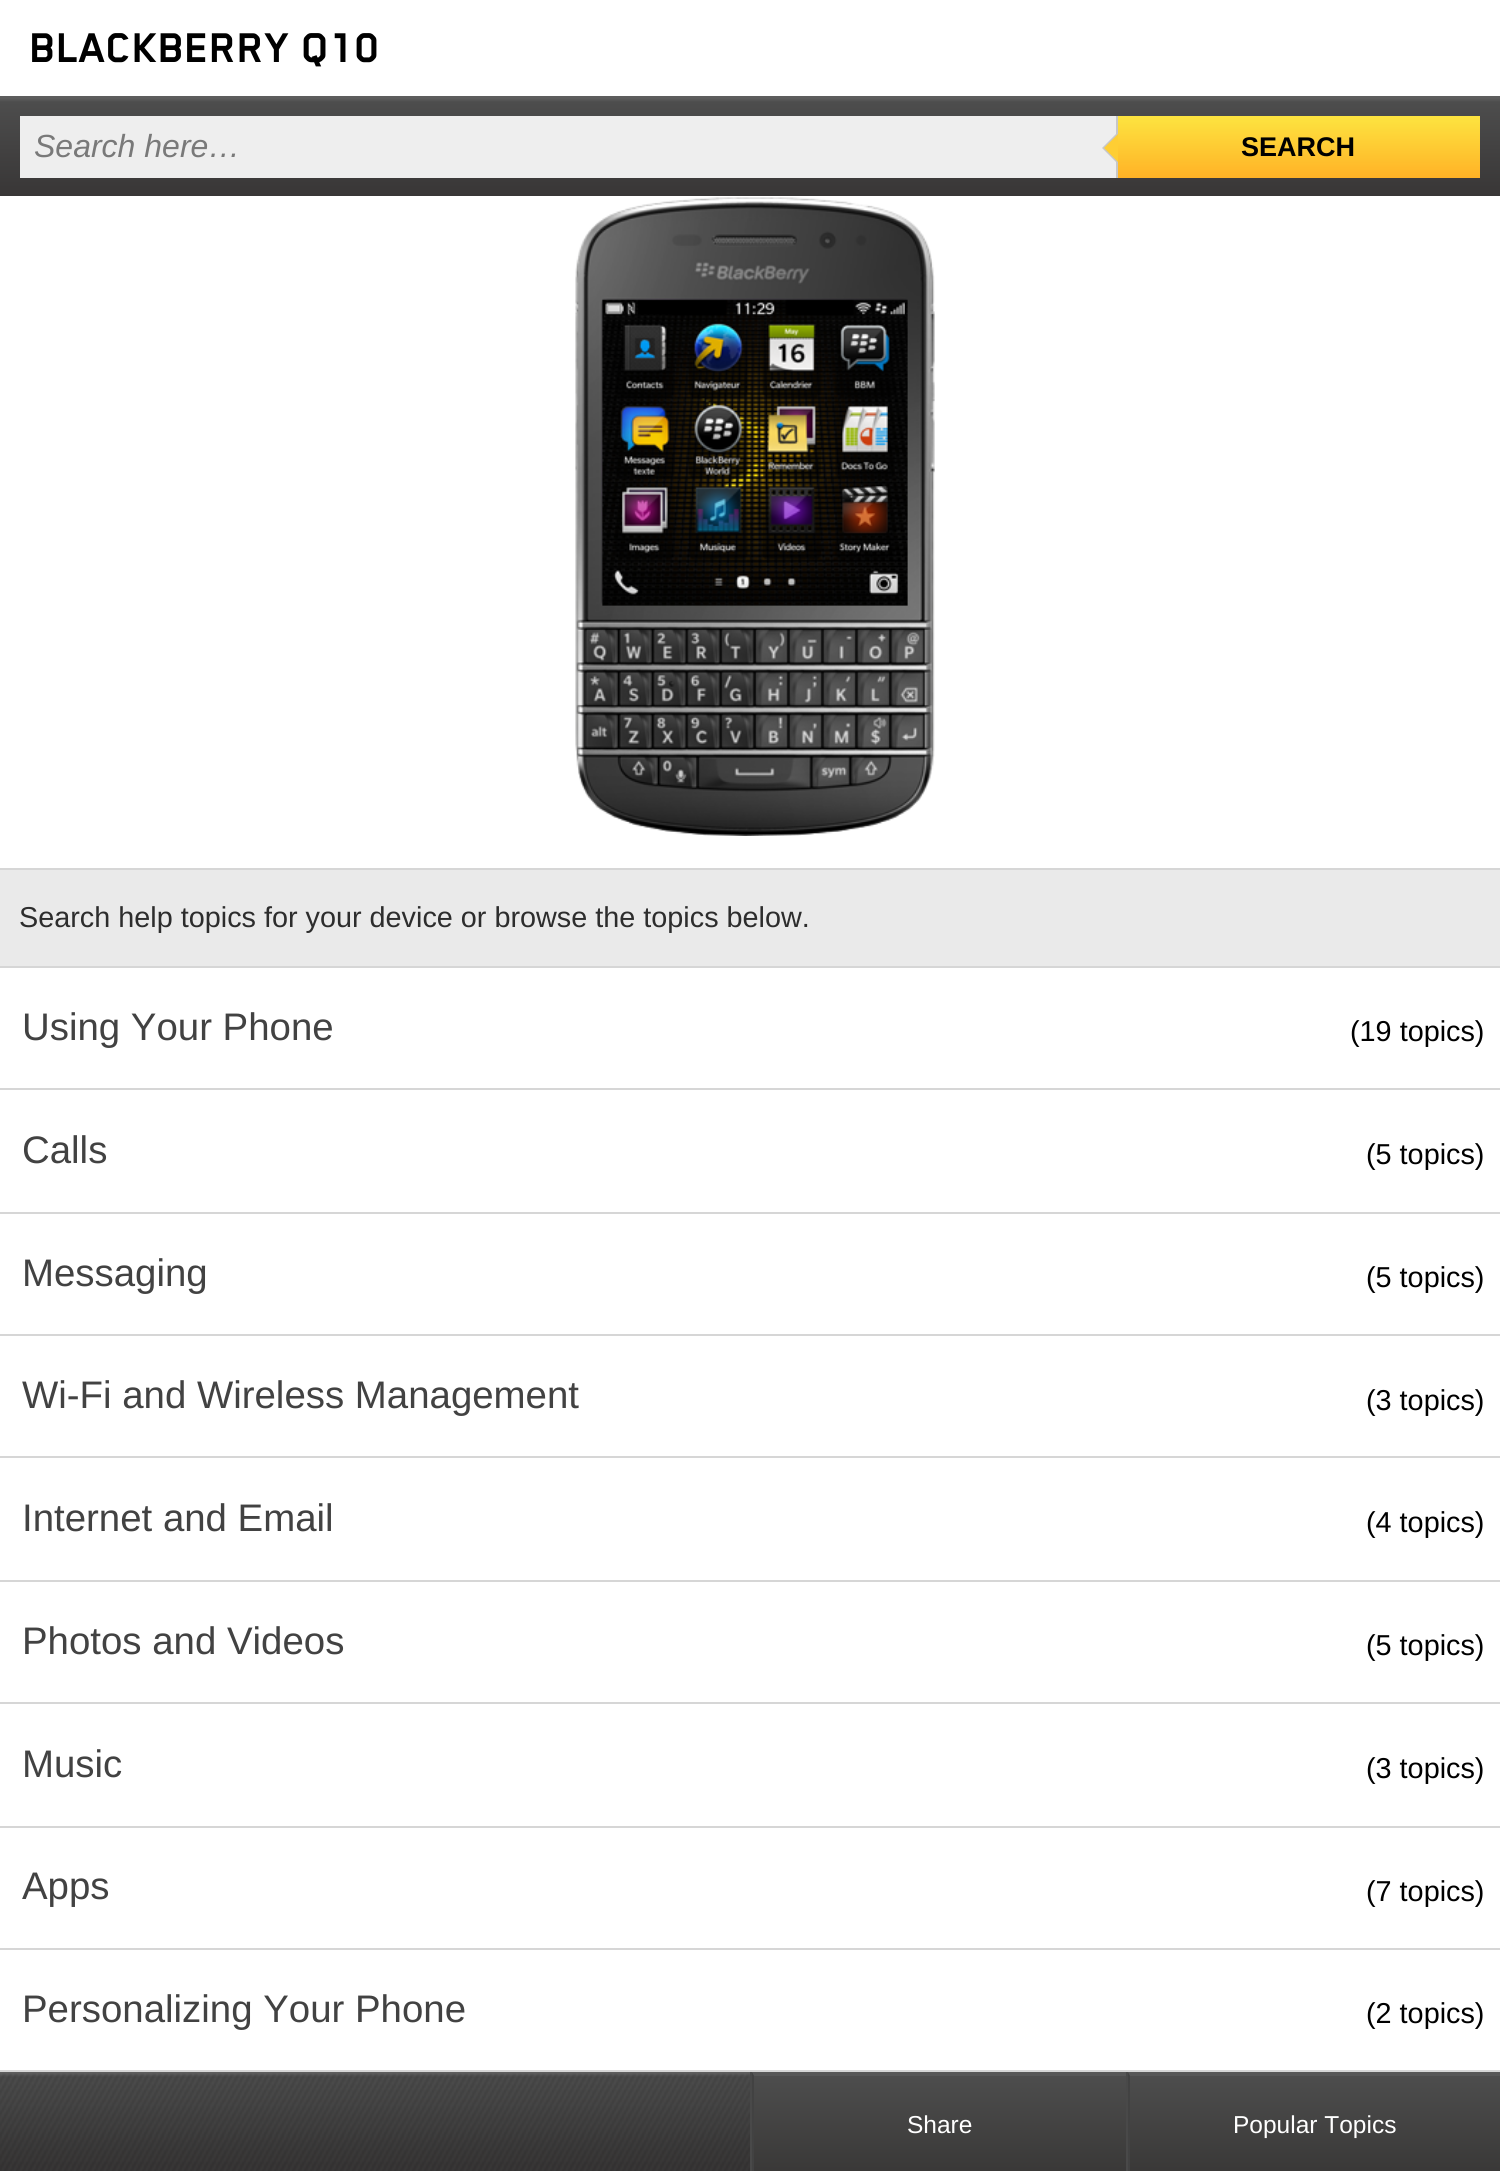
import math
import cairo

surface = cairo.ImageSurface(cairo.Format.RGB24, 1500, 2171)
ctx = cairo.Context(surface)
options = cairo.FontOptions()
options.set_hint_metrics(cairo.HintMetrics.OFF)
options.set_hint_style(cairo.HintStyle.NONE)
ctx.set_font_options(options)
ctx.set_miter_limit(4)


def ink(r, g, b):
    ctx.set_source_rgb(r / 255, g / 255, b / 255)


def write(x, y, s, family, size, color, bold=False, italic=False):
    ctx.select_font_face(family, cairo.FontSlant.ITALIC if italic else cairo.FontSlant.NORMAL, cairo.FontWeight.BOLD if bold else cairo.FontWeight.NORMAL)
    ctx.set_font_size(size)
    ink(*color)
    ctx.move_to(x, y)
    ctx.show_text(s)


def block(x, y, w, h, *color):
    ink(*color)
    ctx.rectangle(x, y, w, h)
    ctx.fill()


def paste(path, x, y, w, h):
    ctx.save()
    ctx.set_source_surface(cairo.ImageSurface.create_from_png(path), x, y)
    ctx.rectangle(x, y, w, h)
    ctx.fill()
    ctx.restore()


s1 = dict(family="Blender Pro", size=48, color=(0, 0, 0), bold=True)
s2 = dict(family="Liberation Sans", size=32, color=(121, 121, 121), italic=True)
s3 = dict(family="Liberation Sans", size=27, color=(0, 0, 0), bold=True)
s4 = dict(family="Liberation Sans", size=28.8, color=(45, 45, 45))
s5 = dict(family="Liberation Sans", size=38.4, color=(66, 66, 66))
s6 = dict(family="Liberation Sans", size=28.8, color=(0, 0, 0))
s7 = dict(family="Liberation Sans", size=24.5, color=(255, 255, 255))

ink(255, 255, 255)
ctx.paint()
write(30, 62, "BLACKBERRY Q10", **s1)
gradient = cairo.LinearGradient(750, 96, 750, 196)
gradient.add_color_stop_rgba(0.02, 0.365, 0.365, 0.365, 1)
gradient.add_color_stop_rgba(0.04, 0.341, 0.341, 0.341, 1)
gradient.add_color_stop_rgba(0.06, 0.302, 0.302, 0.302, 1)
gradient.add_color_stop_rgba(1, 0.22, 0.212, 0.212, 1)
ctx.set_source(gradient)
ctx.rectangle(0, 96, 1500, 100)
ctx.fill()
block(20, 116, 1096, 62, 238, 238, 238)
write(34, 157, "Search here…", **s2)
ink(199, 199, 199)
ctx.new_path()
ctx.move_to(1118, 132)
ctx.line_to(1118, 164)
ctx.line_to(1102, 148)
ctx.close_path()
ctx.fill()
block(1116, 116, 2, 62, 199, 199, 199)
ink(254, 206, 52)
ctx.new_path()
ctx.move_to(1118, 134)
ctx.line_to(1118, 162)
ctx.line_to(1104, 148)
ctx.close_path()
ctx.fill()
gradient = cairo.LinearGradient(1299, 116, 1299, 178)
gradient.add_color_stop_rgba(0, 0.992, 0.894, 0.251, 1)
gradient.add_color_stop_rgba(1, 1, 0.698, 0.149, 1)
ctx.set_source(gradient)
ctx.rectangle(1118, 116, 362, 62)
ctx.fill()
write(1241, 156, "SEARCH", **s3)
paste("pic1.png", 575, 197, 360, 639)
block(0, 870, 1500, 96, 234, 234, 234)
block(0, 868, 1500, 2, 214, 214, 214)
block(0, 966, 1500, 2, 214, 214, 214)
write(19, 927, "Search help topics for your device or browse the topics below.", **s4)
block(0, 1088, 1500, 2, 214, 214, 214)
write(22, 1040, "Using Your Phone", **s5)
write(1350, 1041, "(19 topics)", **s6)
block(0, 1212, 1500, 2, 214, 214, 214)
write(22, 1163, "Calls", **s5)
write(1366, 1164, "(5 topics)", **s6)
block(0, 1334, 1500, 2, 214, 214, 214)
write(22, 1286, "Messaging", **s5)
write(1366, 1287, "(5 topics)", **s6)
block(0, 1456, 1500, 2, 214, 214, 214)
write(22, 1408, "Wi-Fi and Wireless Management", **s5)
write(1366, 1410, "(3 topics)", **s6)
block(0, 1580, 1500, 2, 214, 214, 214)
write(22, 1531, "Internet and Email", **s5)
write(1366, 1532, "(4 topics)", **s6)
block(0, 1702, 1500, 2, 214, 214, 214)
write(22, 1654, "Photos and Videos", **s5)
write(1366, 1655, "(5 topics)", **s6)
block(0, 1826, 1500, 2, 214, 214, 214)
write(22, 1777, "Music", **s5)
write(1366, 1778, "(3 topics)", **s6)
block(0, 1948, 1500, 2, 214, 214, 214)
write(22, 1899, "Apps", **s5)
write(1366, 1901, "(7 topics)", **s6)
block(0, 2070, 1500, 2, 214, 214, 214)
write(22, 2022, "Personalizing Your Phone", **s5)
write(1366, 2023, "(2 topics)", **s6)
paste("pic2.png", 0, 2072, 1130, 99)
block(750, 2072, 2, 99, 73, 73, 73)
gradient = cairo.LinearGradient(940, 2076, 940, 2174)
gradient.add_color_stop_rgba(0, 0.302, 0.302, 0.302, 1)
gradient.add_color_stop_rgba(1, 0.224, 0.22, 0.216, 1)
ctx.set_source(gradient)
ctx.rectangle(754, 2076, 372, 95)
ctx.fill()
ink(87, 87, 87)
ctx.new_path()
ctx.move_to(752, 2072)
ctx.line_to(1126, 2072)
ctx.line_to(1126, 2076)
ctx.line_to(754, 2076)
ctx.close_path()
ctx.fill()
ink(66, 66, 66)
ctx.new_path()
ctx.move_to(752, 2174)
ctx.line_to(752, 2072)
ctx.line_to(754, 2076)
ctx.line_to(754, 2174)
ctx.close_path()
ctx.fill()
write(907, 2133, "Share", **s7)
block(1126, 2072, 2, 99, 73, 73, 73)
gradient = cairo.LinearGradient(1315, 2076, 1315, 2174)
gradient.add_color_stop_rgba(0, 0.302, 0.302, 0.302, 1)
gradient.add_color_stop_rgba(1, 0.224, 0.22, 0.216, 1)
ctx.set_source(gradient)
ctx.rectangle(1130, 2076, 370, 95)
ctx.fill()
ink(87, 87, 87)
ctx.new_path()
ctx.move_to(1128, 2072)
ctx.line_to(1500, 2072)
ctx.line_to(1500, 2076)
ctx.line_to(1130, 2076)
ctx.close_path()
ctx.fill()
ink(66, 66, 66)
ctx.new_path()
ctx.move_to(1128, 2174)
ctx.line_to(1128, 2072)
ctx.line_to(1130, 2076)
ctx.line_to(1130, 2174)
ctx.close_path()
ctx.fill()
write(1233, 2133, "Popular Topics", **s7)
surface.write_to_png("screenshot.png")
